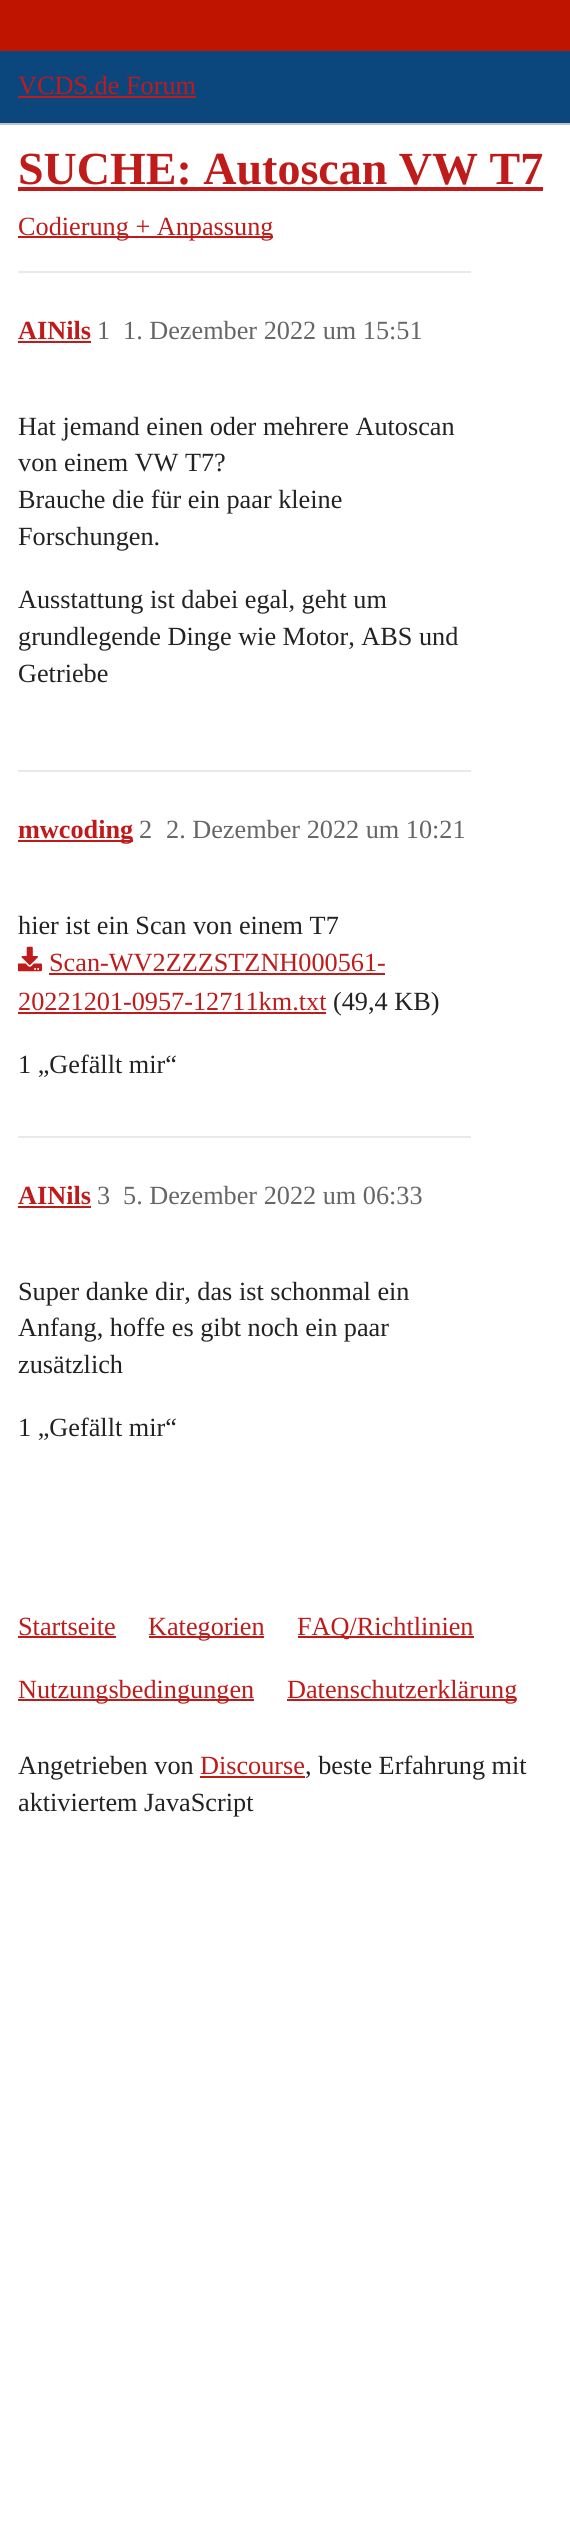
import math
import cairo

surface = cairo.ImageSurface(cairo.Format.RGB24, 570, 2535)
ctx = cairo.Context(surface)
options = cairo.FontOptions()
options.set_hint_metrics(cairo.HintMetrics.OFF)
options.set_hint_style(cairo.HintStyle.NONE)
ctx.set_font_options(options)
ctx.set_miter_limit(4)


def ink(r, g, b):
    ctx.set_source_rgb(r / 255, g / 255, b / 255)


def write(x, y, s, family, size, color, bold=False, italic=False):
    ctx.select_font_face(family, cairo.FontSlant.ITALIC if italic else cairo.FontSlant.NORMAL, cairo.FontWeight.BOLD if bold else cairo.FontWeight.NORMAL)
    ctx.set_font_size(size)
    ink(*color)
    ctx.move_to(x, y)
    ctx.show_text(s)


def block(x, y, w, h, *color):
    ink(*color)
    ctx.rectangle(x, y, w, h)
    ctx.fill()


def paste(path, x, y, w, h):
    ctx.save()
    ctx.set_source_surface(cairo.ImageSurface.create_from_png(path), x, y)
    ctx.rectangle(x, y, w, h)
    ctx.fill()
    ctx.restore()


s1 = dict(family="Liberation Serif", size=26.25, color=(191, 27, 27))
s2 = dict(family="Liberation Serif", size=46, color=(191, 27, 27), bold=True)
s3 = dict(family="Liberation Serif", size=26.25, color=(191, 27, 27), bold=True)
s4 = dict(family="Liberation Serif", size=26.25, color=(102, 102, 102))
s5 = dict(family="Liberation Serif", size=26.25, color=(34, 34, 34))

ink(255, 255, 255)
ctx.paint()
block(0, 0, 570, 51, 190, 20, 0)
block(0, 51, 570, 72, 11, 70, 125)
block(0, 123, 570, 2, 189, 195, 207)
write(18, 94, "VCDS.de Forum", **s1)
block(18, 96, 178, 2, 191, 27, 27)
write(18, 184, "SUCHE: Autoscan VW T7", **s2)
block(18, 187, 525, 4, 191, 27, 27)
block(18, 236, 255, 2, 191, 27, 27)
write(18, 235, "Codierung + Anpassung", **s1)
block(18, 271, 453, 2, 233, 233, 233)
write(18, 339, "AINils", **s3)
block(18, 341, 73, 2, 191, 27, 27)
write(97, 339, "1", **s4)
write(123, 339, "1. Dezember 2022 um 15:51", **s4)
write(18, 435, "Hat jemand einen oder mehrere Autoscan", **s5)
write(18, 471, "von einem VW T7?", **s5)
write(18, 508, "Brauche die für ein paar kleine", **s5)
write(18, 545, "Forschungen.", **s5)
write(18, 608, "Ausstattung ist dabei egal, geht um", **s5)
write(18, 645, "grundlegende Dinge wie Motor, ABS und", **s5)
write(18, 682, "Getriebe", **s5)
block(18, 770, 453, 2, 233, 233, 233)
block(18, 840, 115, 2, 191, 27, 27)
write(18, 838, "mwcoding", **s3)
write(139, 838, "2", **s4)
write(166, 838, "2. Dezember 2022 um 10:21", **s4)
write(18, 934, "hier ist ein Scan von einem T7", **s5)
paste("pic1.png", 18, 946, 24, 26)
write(49, 971, "Scan-WV2ZZZSTZNH000561-", **s1)
block(49, 973, 336, 2, 191, 27, 27)
write(18, 1010, "20221201-0957-12711km.txt", **s1)
block(18, 1012, 308, 2, 191, 27, 27)
write(333, 1010, "(49,4 KB)", **s5)
write(18, 1073, "1 „Gefällt mir“", **s5)
block(18, 1136, 453, 2, 233, 233, 233)
write(18, 1204, "AINils", **s3)
block(18, 1206, 73, 2, 191, 27, 27)
write(97, 1204, "3", **s4)
write(123, 1204, "5. Dezember 2022 um 06:33", **s4)
write(18, 1300, "Super danke dir, das ist schonmal ein", **s5)
write(18, 1336, "Anfang, hoffe es gibt noch ein paar", **s5)
write(18, 1373, "zusätzlich", **s5)
write(18, 1436, "1 „Gefällt mir“", **s5)
write(18, 1635, "Startseite", **s1)
block(18, 1636, 98, 2, 191, 27, 27)
block(149, 1636, 115, 2, 191, 27, 27)
write(148, 1635, "Kategorien", **s1)
block(298, 1636, 176, 2, 191, 27, 27)
write(297, 1635, "FAQ/Richtlinien", **s1)
block(18, 1699, 236, 2, 191, 27, 27)
write(18, 1698, "Nutzungsbedingungen", **s1)
block(287, 1699, 229, 2, 191, 27, 27)
write(287, 1698, "Datenschutzerklärung", **s1)
write(18, 1774, "Angetrieben von", **s5)
write(200, 1774, "Discourse", **s1)
block(200, 1776, 105, 2, 191, 27, 27)
write(305, 1774, ", beste Erfahrung mit", **s5)
write(18, 1811, "aktiviertem JavaScript", **s5)
surface.write_to_png("screenshot.png")
